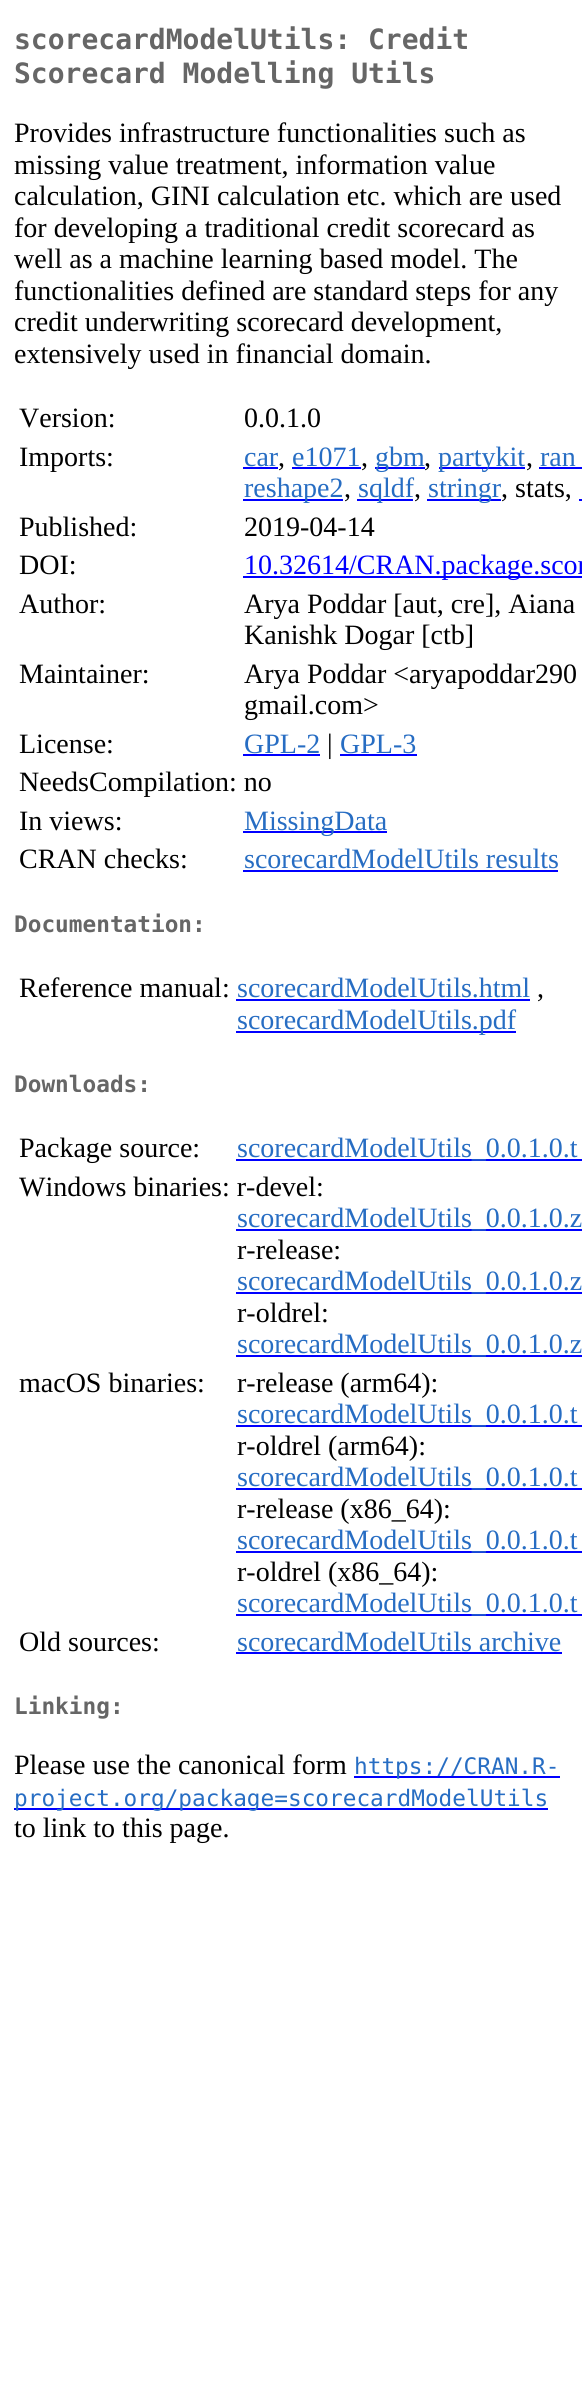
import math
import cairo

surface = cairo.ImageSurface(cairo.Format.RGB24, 582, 2397)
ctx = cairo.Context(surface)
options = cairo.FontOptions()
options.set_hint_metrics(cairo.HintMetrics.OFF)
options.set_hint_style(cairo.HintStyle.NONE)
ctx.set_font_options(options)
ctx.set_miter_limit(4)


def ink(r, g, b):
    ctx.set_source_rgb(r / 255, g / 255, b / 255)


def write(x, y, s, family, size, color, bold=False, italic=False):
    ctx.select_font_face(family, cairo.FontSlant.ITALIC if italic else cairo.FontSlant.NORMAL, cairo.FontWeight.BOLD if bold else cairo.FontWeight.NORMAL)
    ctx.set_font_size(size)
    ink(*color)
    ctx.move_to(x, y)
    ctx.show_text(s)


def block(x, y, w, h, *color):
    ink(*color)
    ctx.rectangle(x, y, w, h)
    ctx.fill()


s1 = dict(family="DejaVu Sans Mono", size=28, color=(102, 102, 102), bold=True)
s2 = dict(family="Liberation Serif", size=28, color=(0, 0, 0))
s3 = dict(family="Liberation Serif", size=28, color=(39, 109, 195))
s4 = dict(family="Liberation Serif", size=28, color=(0, 0, 255))
s5 = dict(family="DejaVu Sans Mono", size=22.75, color=(102, 102, 102), bold=True)
s6 = dict(family="DejaVu Sans Mono", size=22.75, color=(39, 109, 195))

ink(255, 255, 255)
ctx.paint()
write(14, 49, "scorecardModelUtils: Credit", **s1)
write(14, 83, "Scorecard Modelling Utils", **s1)
write(14, 142, "Provides infrastructure functionalities such as", **s2)
write(14, 174, "missing value treatment, information value", **s2)
write(14, 205, "calculation, GINI calculation etc. which are used", **s2)
write(14, 237, "for developing a traditional credit scorecard as", **s2)
write(14, 268, "well as a machine learning based model. The", **s2)
write(14, 300, "functionalities defined are standard steps for any", **s2)
write(14, 331, "credit underwriting scorecard development,", **s2)
write(14, 363, "extensively used in financial domain.", **s2)
write(19, 427, "Version:", **s2)
write(244, 427, "0.0.1.0", **s2)
write(19, 466, "Imports:", **s2)
write(244, 466, "car", **s3)
block(243, 467, 35, 2, 0, 0, 255)
write(278, 466, ",", **s2)
write(292, 466, "e1071", **s3)
block(292, 467, 69, 2, 0, 0, 255)
write(361, 466, ",", **s2)
block(375, 467, 50, 2, 0, 0, 255)
write(375, 466, "gbm", **s3)
write(424, 466, ",", **s2)
block(439, 467, 86, 2, 0, 0, 255)
write(438, 466, "partykit", **s3)
write(526, 466, ",", **s2)
write(540, 466, "ran", **s3)
block(539, 467, 43, 2, 0, 0, 255)
block(243, 499, 100, 2, 0, 0, 255)
write(244, 497, "reshape2", **s3)
write(344, 497, ",", **s2)
block(357, 499, 56, 2, 0, 0, 255)
write(358, 497, "sqldf", **s3)
write(414, 497, ",", **s2)
block(427, 499, 74, 2, 0, 0, 255)
write(428, 497, "stringr", **s3)
write(501, 497, ", stats,", **s2)
block(579, 499, 3, 2, 0, 0, 255)
write(19, 536, "Published:", **s2)
write(244, 536, "2019-04-14", **s2)
write(19, 574, "DOI:", **s2)
block(243, 576, 339, 2, 0, 0, 255)
write(244, 574, "10.32614/CRAN.package.scor", **s4)
write(19, 613, "Author:", **s2)
write(244, 613, "Arya Poddar [aut, cre], Aiana", **s2)
write(244, 644, "Kanishk Dogar [ctb]", **s2)
write(19, 683, "Maintainer:", **s2)
write(244, 683, "Arya Poddar <aryapoddar290", **s2)
write(244, 714, "gmail.com>", **s2)
write(19, 753, "License:", **s2)
write(244, 753, "GPL-2", **s3)
block(243, 754, 77, 2, 0, 0, 255)
write(327, 753, "|", **s2)
write(340, 753, "GPL-3", **s3)
block(340, 754, 77, 2, 0, 0, 255)
write(19, 791, "NeedsCompilation: no", **s2)
write(19, 830, "In views:", **s2)
block(243, 831, 144, 2, 0, 0, 255)
write(244, 830, "MissingData", **s3)
write(19, 868, "CRAN checks:", **s2)
write(244, 868, "scorecardModelUtils results", **s3)
block(243, 870, 315, 2, 0, 0, 255)
write(14, 932, "Documentation:", **s5)
write(19, 997, "Reference manual:", **s2)
write(237, 997, "scorecardModelUtils.html", **s3)
block(236, 999, 294, 2, 0, 0, 255)
write(537, 997, ",", **s2)
block(236, 1031, 280, 2, 0, 0, 255)
write(237, 1029, "scorecardModelUtils.pdf", **s3)
write(14, 1092, "Downloads:", **s5)
write(19, 1157, "Package source:", **s2)
block(236, 1159, 346, 2, 0, 0, 255)
write(237, 1157, "scorecardModelUtils_0.0.1.0.t", **s3)
write(19, 1196, "Windows binaries: r-devel:", **s2)
block(236, 1229, 346, 2, 0, 0, 255)
write(237, 1227, "scorecardModelUtils_0.0.1.0.z", **s3)
write(237, 1259, "r-release:", **s2)
block(236, 1292, 346, 2, 0, 0, 255)
write(237, 1290, "scorecardModelUtils_0.0.1.0.z", **s3)
write(237, 1322, "r-oldrel:", **s2)
block(236, 1355, 346, 2, 0, 0, 255)
write(237, 1353, "scorecardModelUtils_0.0.1.0.z", **s3)
write(19, 1392, "macOS binaries:", **s2)
write(237, 1392, "r-release (arm64):", **s2)
block(236, 1425, 346, 2, 0, 0, 255)
write(237, 1423, "scorecardModelUtils_0.0.1.0.t", **s3)
write(237, 1455, "r-oldrel (arm64):", **s2)
block(236, 1488, 346, 2, 0, 0, 255)
write(237, 1486, "scorecardModelUtils_0.0.1.0.t", **s3)
write(237, 1518, "r-release (x86_64):", **s2)
block(236, 1551, 346, 2, 0, 0, 255)
write(237, 1549, "scorecardModelUtils_0.0.1.0.t", **s3)
write(237, 1581, "r-oldrel (x86_64):", **s2)
block(236, 1614, 346, 2, 0, 0, 255)
write(237, 1612, "scorecardModelUtils_0.0.1.0.t", **s3)
write(19, 1651, "Old sources:", **s2)
write(237, 1651, "scorecardModelUtils archive", **s3)
block(236, 1652, 326, 2, 0, 0, 255)
write(14, 1714, "Linking:", **s5)
write(14, 1774, "Please use the canonical form", **s2)
block(354, 1776, 206, 2, 0, 0, 255)
write(354, 1774, "https://CRAN.R-", **s6)
block(14, 1808, 534, 2, 0, 0, 255)
write(14, 1806, "project.org/package=scorecardModelUtils", **s6)
write(14, 1837, "to link to this page.", **s2)
surface.write_to_png("screenshot.png")
